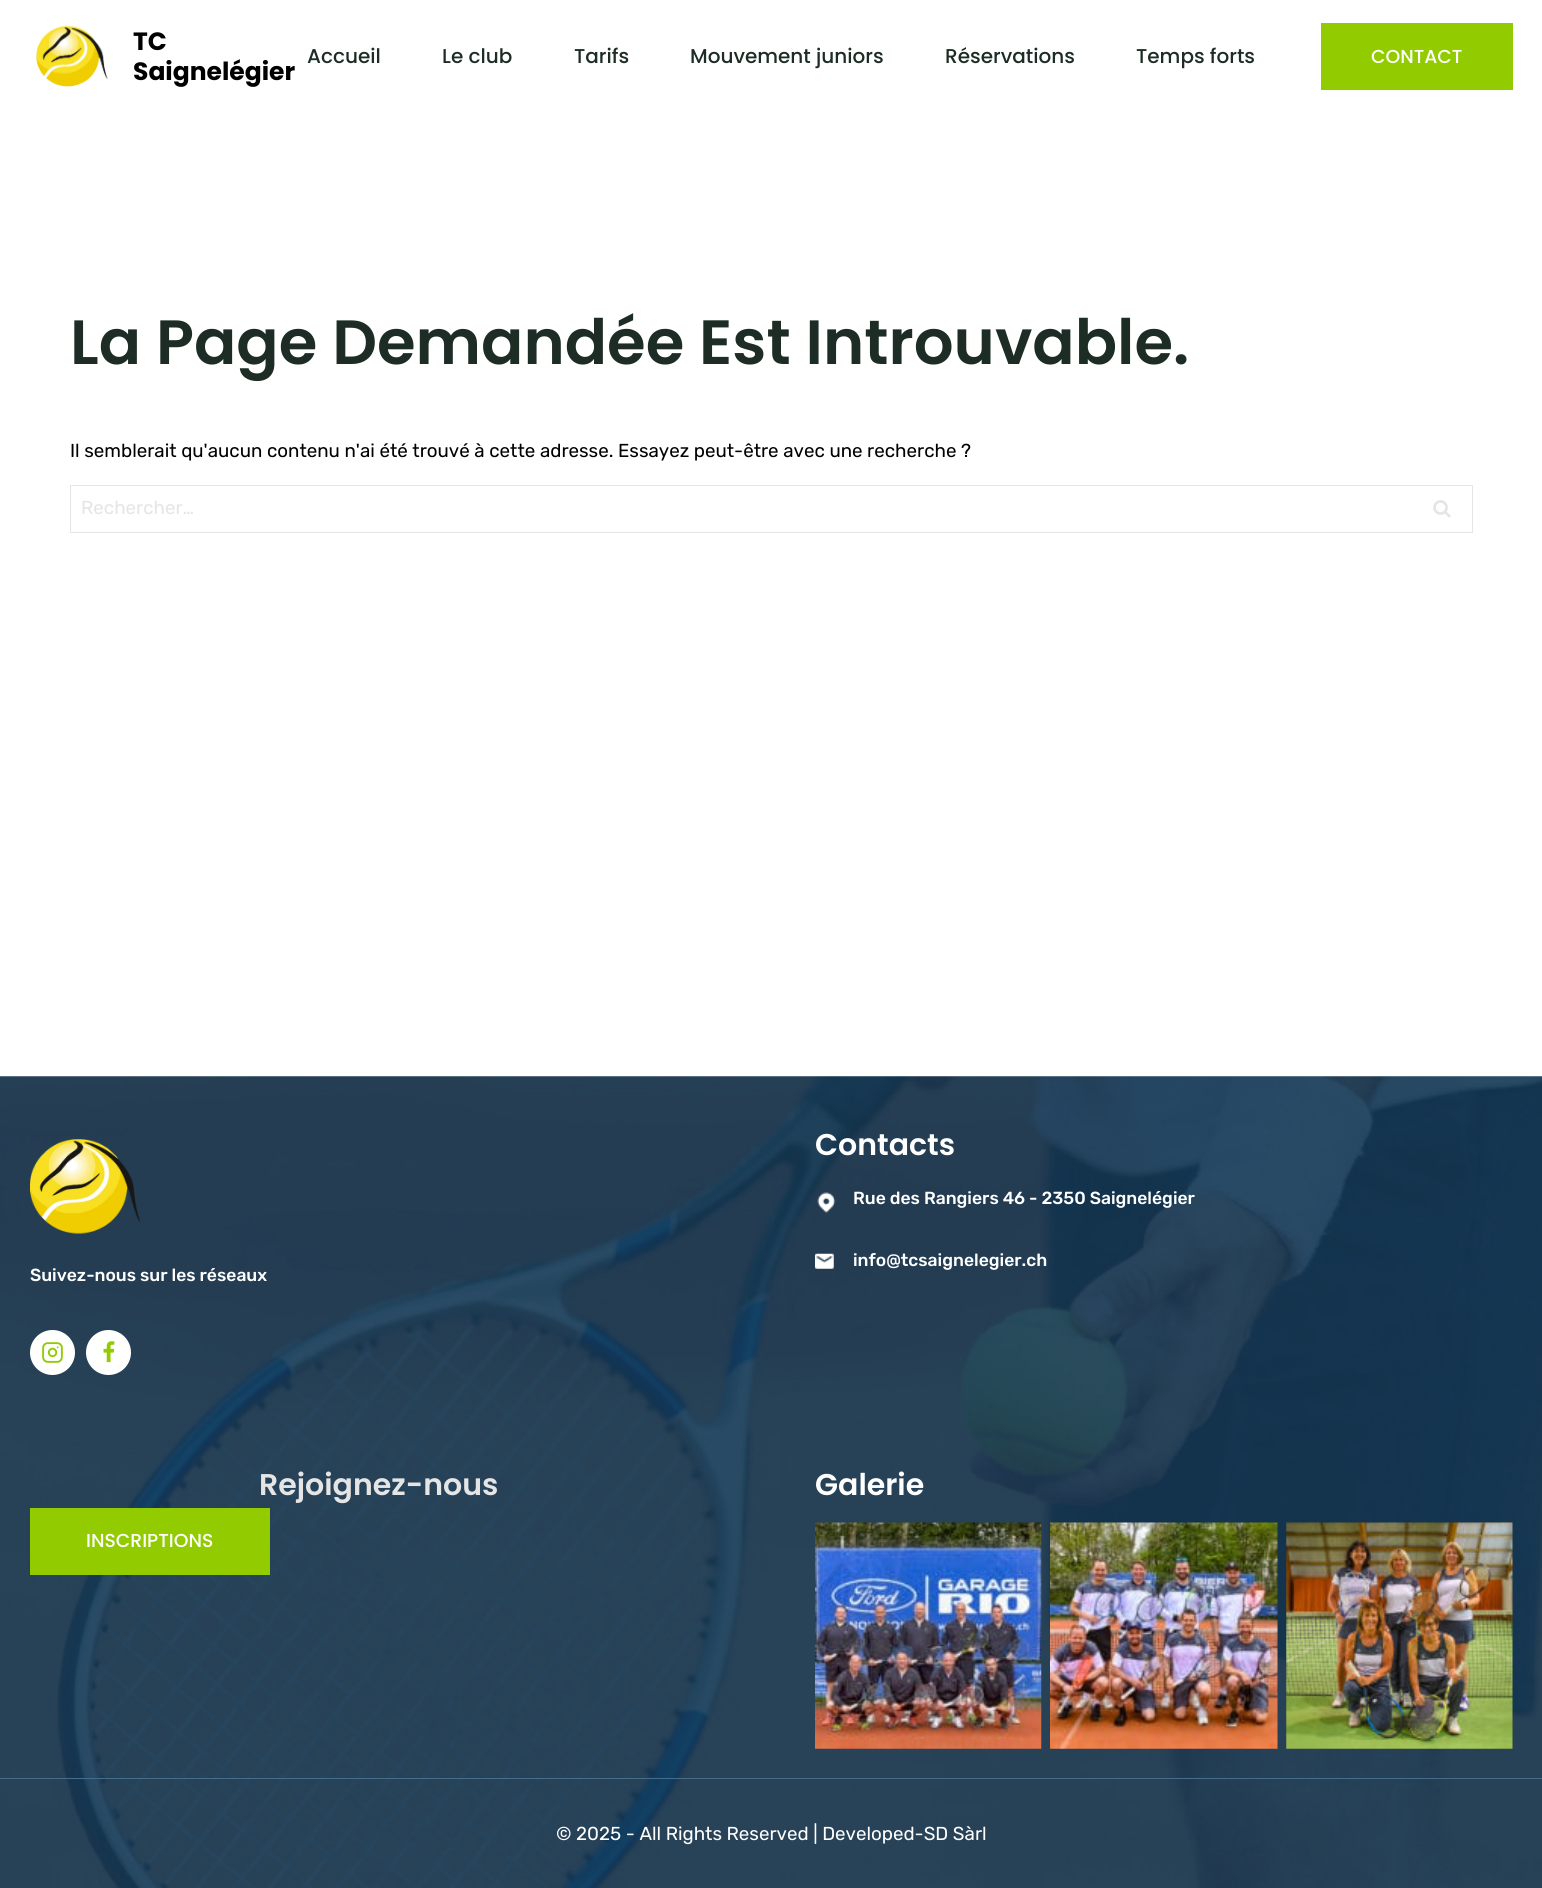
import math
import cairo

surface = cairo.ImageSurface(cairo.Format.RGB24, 1542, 1888)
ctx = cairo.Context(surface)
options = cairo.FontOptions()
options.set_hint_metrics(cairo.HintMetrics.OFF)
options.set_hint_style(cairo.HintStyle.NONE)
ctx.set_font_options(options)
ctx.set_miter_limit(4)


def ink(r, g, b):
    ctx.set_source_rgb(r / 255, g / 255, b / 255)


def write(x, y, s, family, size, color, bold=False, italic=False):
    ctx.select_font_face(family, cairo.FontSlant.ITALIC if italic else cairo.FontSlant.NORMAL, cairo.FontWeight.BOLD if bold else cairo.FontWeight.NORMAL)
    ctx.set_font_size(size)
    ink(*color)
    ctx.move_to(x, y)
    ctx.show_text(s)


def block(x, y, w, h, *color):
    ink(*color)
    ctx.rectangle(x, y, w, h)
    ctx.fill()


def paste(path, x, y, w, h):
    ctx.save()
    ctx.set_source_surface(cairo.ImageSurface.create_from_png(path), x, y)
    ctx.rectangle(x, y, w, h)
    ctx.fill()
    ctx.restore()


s1 = dict(family="Poppins", size=25, color=(0, 0, 0), bold=True)
s2 = dict(family="Poppins Medium", size=20, color=(29, 45, 37))
s3 = dict(family="Poppins Medium", size=18.75, color=(255, 255, 255))
s4 = dict(family="Poppins SemiBold", size=62.5, color=(29, 45, 37))
s5 = dict(family="Rubik", size=18.75, color=(0, 0, 0))
s6 = dict(family="Rubik", size=18.75, color=(229, 229, 229))
s7 = dict(family="Poppins SemiBold", size=30, color=(255, 255, 255))
s8 = dict(family="Rubik Medium", size=17.5, color=(255, 255, 255))
s9 = dict(family="Poppins SemiBold", size=30, color=(229, 229, 229))
s10 = dict(family="Rubik", size=18.75, color=(255, 255, 255))

ink(255, 255, 255)
ctx.paint()
paste("pic1.png", 36, 25, 72, 62)
write(133, 50, "TC", **s1)
write(133, 80, "Saignelégier", **s1)
write(307, 63, "Accueil", **s2)
write(442, 63, "Le club", **s2)
write(574, 63, "Tarifs", **s2)
write(690, 63, "Mouvement juniors", **s2)
write(945, 63, "Réservations", **s2)
write(1136, 63, "Temps forts", **s2)
block(1321, 23, 192, 67, 146, 203, 0)
write(1371, 63, "CONTACT", **s3)
write(70, 364, "La Page Demandée Est Introuvable.", **s4)
write(70, 457, "Il semblerait qu'aucun contenu n'ai été trouvé à cette adresse. Essayez peut-être avec une recherche ?", **s5)
ctx.rectangle(70.5, 485.5, 1402, 47)
ink(229, 229, 229)
ctx.set_line_width(1)
ctx.stroke()
write(81, 514, "Rechercher…", **s6)
paste("pic2.png", 1433, 500, 18, 18)
paste("pic3.png", 0, 1076, 1542, 812)
write(815, 1155, "Contacts", **s7)
paste("pic4.png", 817, 1192, 19, 21)
write(853, 1204, "Rue des Rangiers 46 - 2350 Saignelégier", **s8)
paste("pic5.png", 815, 1253, 19, 16)
write(853, 1266, "info@tcsaignelegier.ch", **s8)
paste("pic6.png", 30, 1139, 110, 95)
write(30, 1281, "Suivez-nous sur les réseaux", **s8)
ctx.new_path()
ctx.arc(52.5, 1352.5, 22.5, 0, 2 * math.pi)
ctx.fill()
paste("pic7.png", 42, 1342, 21, 21)
ctx.arc(108.5, 1352.5, 22.5, 0, 2 * math.pi)
ctx.fill()
paste("pic8.png", 103, 1341, 12, 22)
write(259, 1495, "Rejoignez-nous", **s9)
block(30, 1508, 240, 67, 146, 203, 0)
write(86, 1547, "INSCRIPTIONS", **s3)
write(815, 1495, "Galerie", **s7)
paste("pic9.png", 815, 1522, 227, 227)
paste("pic10.png", 1050, 1522, 228, 227)
paste("pic11.png", 1286, 1522, 227, 227)
block(0, 1778, 1542, 1, 68, 108, 139)
write(556, 1840, "© 2025 - All Rights Reserved | Developed-SD Sàrl", **s10)
surface.write_to_png("screenshot.png")
